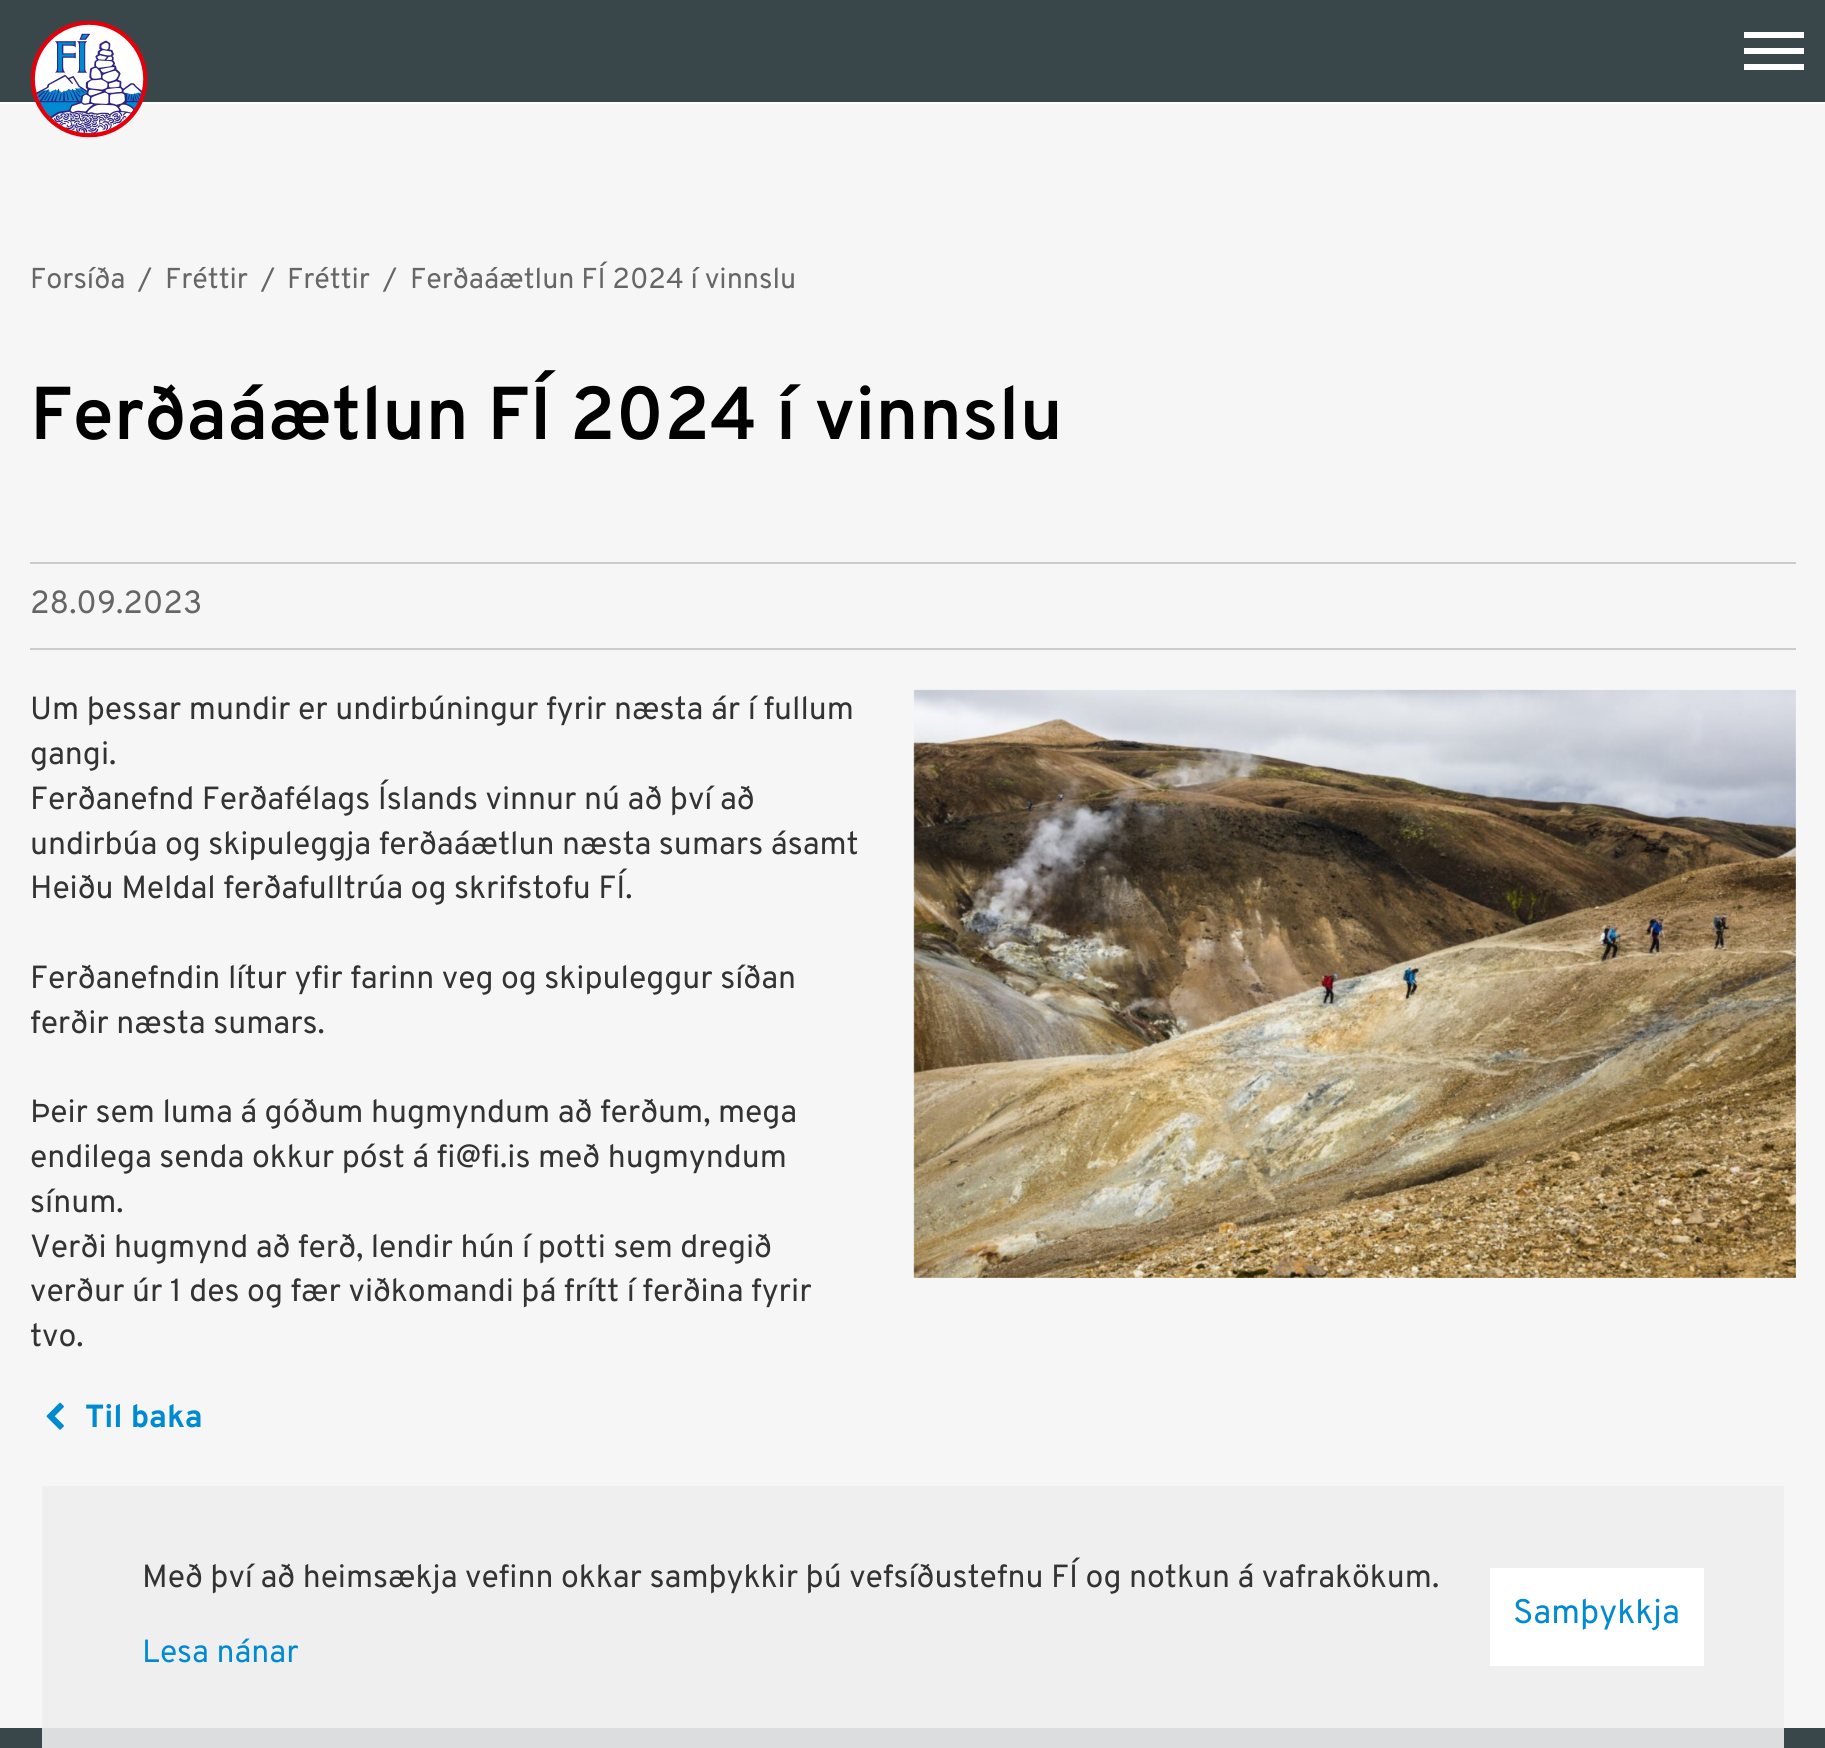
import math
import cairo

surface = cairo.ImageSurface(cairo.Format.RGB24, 1825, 1748)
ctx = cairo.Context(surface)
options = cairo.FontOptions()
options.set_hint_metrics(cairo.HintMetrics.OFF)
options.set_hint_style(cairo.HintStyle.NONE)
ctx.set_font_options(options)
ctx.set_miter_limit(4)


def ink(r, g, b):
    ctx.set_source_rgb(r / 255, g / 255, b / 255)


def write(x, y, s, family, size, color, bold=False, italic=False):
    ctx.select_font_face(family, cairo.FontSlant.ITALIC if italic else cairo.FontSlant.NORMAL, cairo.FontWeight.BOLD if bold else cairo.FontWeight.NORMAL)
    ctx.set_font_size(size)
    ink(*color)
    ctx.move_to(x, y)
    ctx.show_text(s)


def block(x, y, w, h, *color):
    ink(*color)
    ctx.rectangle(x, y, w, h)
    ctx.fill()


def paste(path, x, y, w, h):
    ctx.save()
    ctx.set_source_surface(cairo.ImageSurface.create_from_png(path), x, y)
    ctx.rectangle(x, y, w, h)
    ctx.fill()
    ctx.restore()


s1 = dict(family="Overpass", size=28.75, color=(102, 102, 102))
s2 = dict(family="Overpass SemiBold", size=74.7, color=(0, 0, 0))
s3 = dict(family="Overpass", size=32, color=(102, 102, 102))
s4 = dict(family="Overpass", size=32, color=(51, 51, 51))
s5 = dict(family="Overpass", size=32, color=(0, 138, 210), bold=True)
s6 = dict(family="Overpass", size=32, color=(0, 138, 210))
s7 = dict(family="Overpass", size=34, color=(0, 138, 210))

ink(246, 246, 246)
ctx.paint()
block(42, 1486, 1742, 242, 239, 239, 239)
block(0, 0, 1825, 102, 57, 71, 75)
block(0, 102, 1825, 2, 255, 255, 255)
paste("pic1.png", 30, 20, 118, 118)
block(1744, 32, 60, 6, 255, 255, 255)
block(1744, 48, 60, 6, 255, 255, 255)
block(1744, 64, 60, 6, 255, 255, 255)
write(30, 288, "Forsíða", **s1)
write(138, 288, "/", **s1)
write(165, 288, "Fréttir", **s1)
write(261, 288, "/", **s1)
write(287, 288, "Fréttir", **s1)
write(383, 288, "/", **s1)
write(410, 288, "Ferðaáætlun FÍ 2024 í vinnslu", **s1)
write(30, 439, "Ferðaáætlun FÍ 2024 í vinnslu", **s2)
block(30, 562, 1766, 2, 204, 204, 204)
block(30, 648, 1766, 2, 204, 204, 204)
write(30, 613, "28.09.2023", **s3)
write(30, 719, "Um þessar mundir er undirbúningur fyrir næsta ár í fullum", **s4)
write(30, 764, "gangi.", **s4)
write(30, 809, "Ferðanefnd Ferðafélags Íslands vinnur nú að því að", **s4)
write(30, 854, "undirbúa og skipuleggja ferðaáætlun næsta sumars ásamt", **s4)
write(30, 898, "Heiðu Meldal ferðafulltrúa og skrifstofu FÍ.", **s4)
paste("pic2.png", 913, 689, 883, 589)
write(30, 988, "Ferðanefndin lítur yfir farinn veg og skipuleggur síðan", **s4)
write(30, 1033, "ferðir næsta sumars.", **s4)
write(30, 1122, "Þeir sem luma á góðum hugmyndum að ferðum, mega", **s4)
write(30, 1167, "endilega senda okkur póst á fi@fi.is með hugmyndum", **s4)
write(30, 1212, "sínum.", **s4)
write(30, 1257, "Verði hugmynd að ferð, lendir hún í potti sem dregið", **s4)
write(30, 1301, "verður úr 1 des og fær viðkomandi þá frítt í ferðina fyrir", **s4)
write(30, 1346, "tvo.", **s4)
paste("pic3.png", 46, 1402, 18, 28)
write(85, 1427, "Til baka", **s5)
write(142, 1587, "Með því að heimsækja vefinn okkar samþykkir þú vefsíðustefnu FÍ og notkun á vafrakökum.", **s4)
write(142, 1662, "Lesa nánar", **s6)
block(1490, 1568, 214, 98, 255, 255, 255)
write(1513, 1623, "Samþykkja", **s7)
block(0, 1728, 1825, 20, 57, 71, 75)
block(42, 1728, 1742, 20, 220, 221, 222)
surface.write_to_png("screenshot.png")
